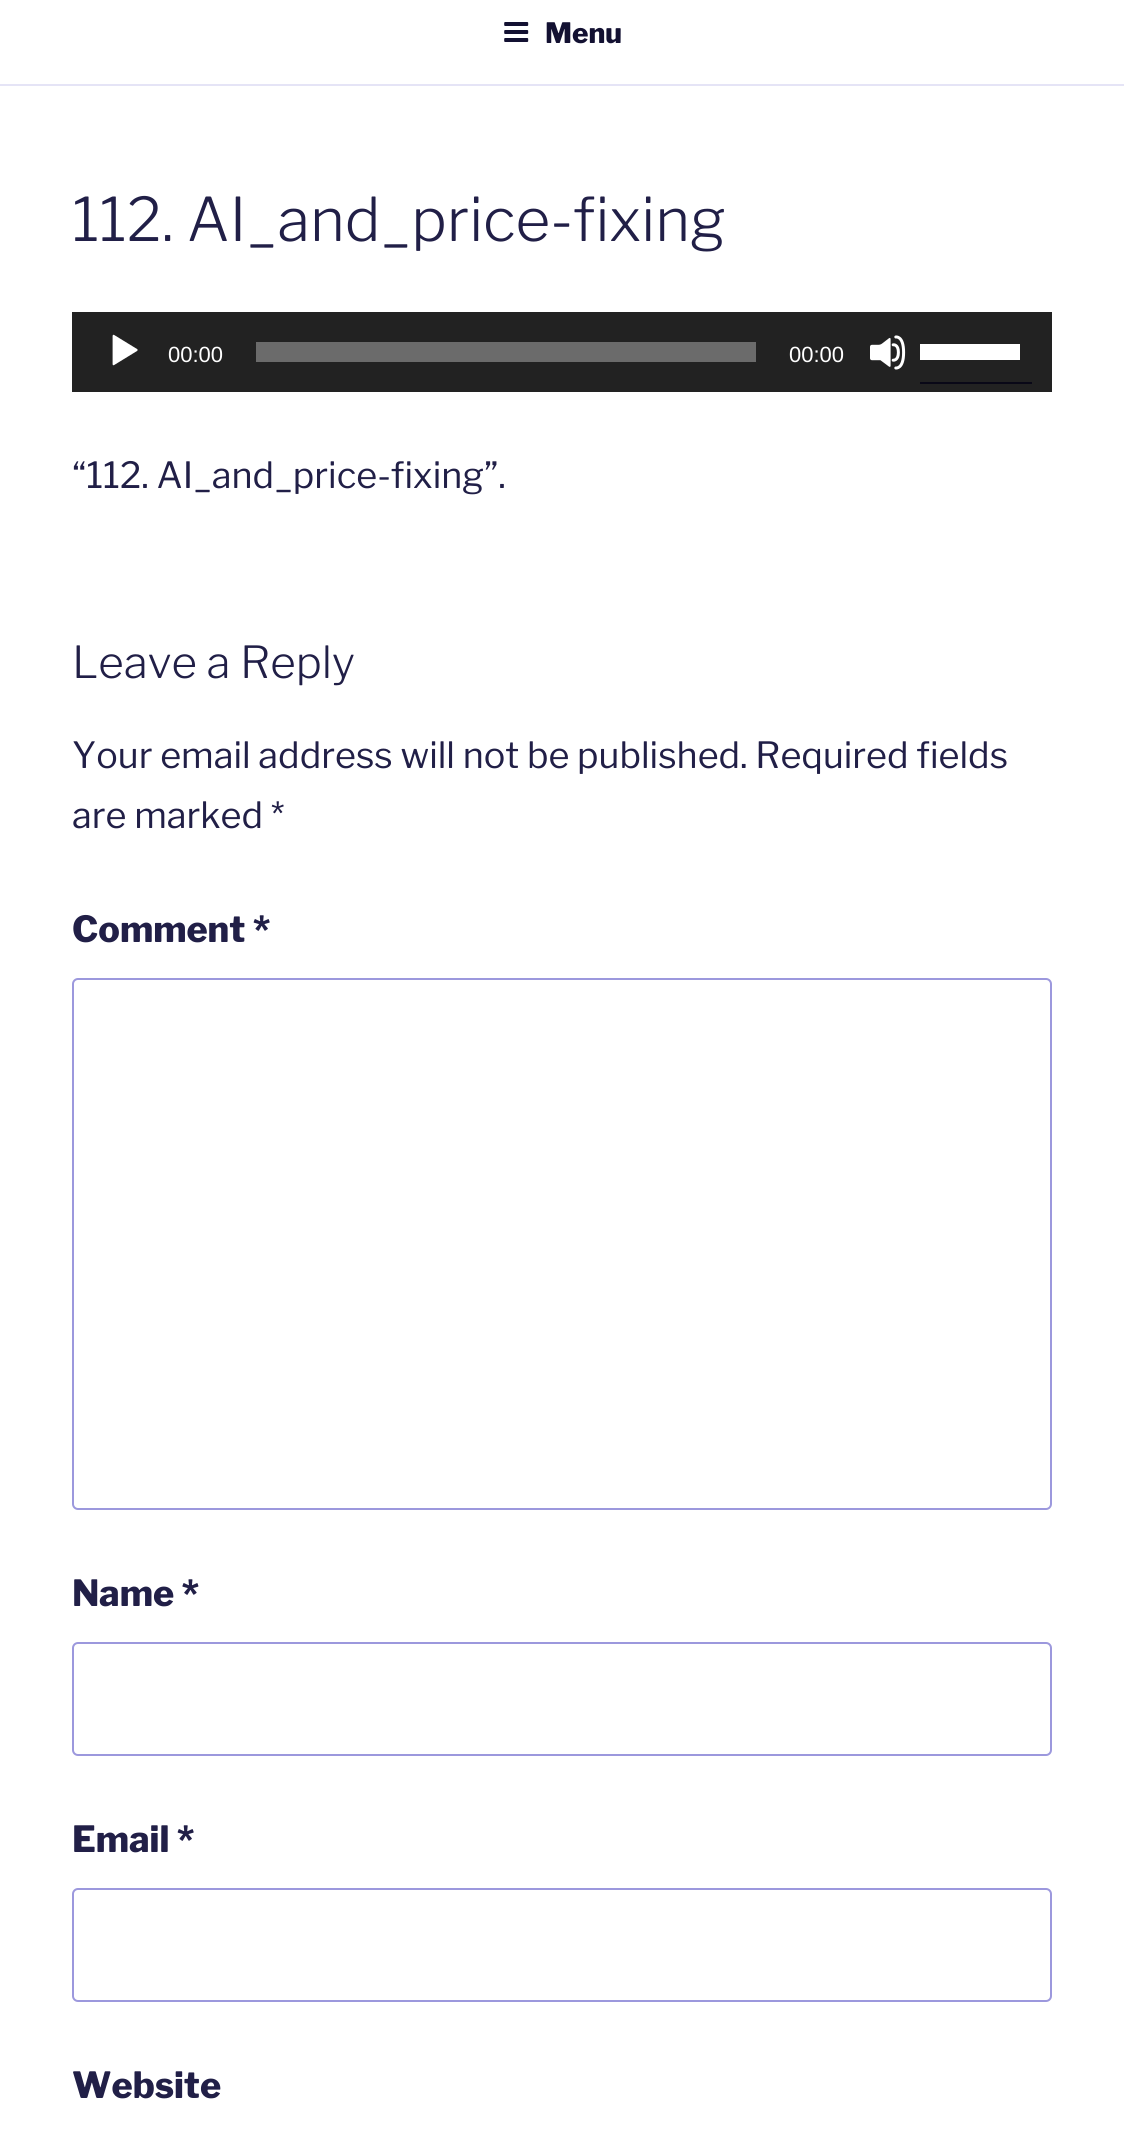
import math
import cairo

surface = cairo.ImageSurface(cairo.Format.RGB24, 1124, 2133)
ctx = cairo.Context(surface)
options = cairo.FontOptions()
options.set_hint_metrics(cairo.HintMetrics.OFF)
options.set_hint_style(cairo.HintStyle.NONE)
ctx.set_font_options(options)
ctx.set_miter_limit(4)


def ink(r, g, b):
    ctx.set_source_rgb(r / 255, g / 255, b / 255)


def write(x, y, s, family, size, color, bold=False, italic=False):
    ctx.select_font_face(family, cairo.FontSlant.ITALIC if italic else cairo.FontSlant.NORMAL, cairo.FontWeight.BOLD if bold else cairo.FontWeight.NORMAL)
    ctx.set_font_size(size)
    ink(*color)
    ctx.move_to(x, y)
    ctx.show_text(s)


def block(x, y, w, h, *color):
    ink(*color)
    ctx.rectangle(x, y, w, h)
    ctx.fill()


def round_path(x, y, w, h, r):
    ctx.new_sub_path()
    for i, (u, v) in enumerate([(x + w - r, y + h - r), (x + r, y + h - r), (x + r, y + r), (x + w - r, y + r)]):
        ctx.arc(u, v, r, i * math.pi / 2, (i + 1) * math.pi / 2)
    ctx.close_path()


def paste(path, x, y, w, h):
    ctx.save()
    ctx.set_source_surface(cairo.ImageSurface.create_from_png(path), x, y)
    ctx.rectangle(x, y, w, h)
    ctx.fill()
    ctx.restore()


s1 = dict(family="Libre Franklin Thin", size=28, color=(19, 17, 50))
s2 = dict(family="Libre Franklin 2 Thin", size=60, color=(33, 31, 71))
s3 = dict(family="Liberation Sans", size=22, color=(255, 255, 255))
s4 = dict(family="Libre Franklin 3 Thin", size=36, color=(33, 31, 71))
s5 = dict(family="Libre Franklin 2 Thin", size=44, color=(33, 31, 71))
s6 = dict(family="Libre Franklin Thin", size=36, color=(33, 31, 71))

ink(255, 255, 255)
ctx.paint()
block(0, 84, 1124, 2, 229, 228, 246)
paste("pic1.png", 504, 22, 25, 20)
write(545, 43, "Menu", **s1)
write(72, 241, "112. AI_and_price-fixing", **s2)
block(72, 312, 980, 80, 34, 34, 34)
paste("pic2.png", 112, 334, 26, 32)
write(168, 362, "00:00", **s3)
block(256, 342, 500, 20, 107, 107, 107)
write(789, 362, "00:00", **s3)
paste("pic3.png", 870, 335, 36, 35)
block(920, 382, 112, 2, 9, 8, 23)
block(920, 344, 100, 16, 255, 255, 255)
write(72, 488, "“112. AI_and_price-fixing”.", **s4)
write(72, 678, "Leave a Reply", **s5)
write(72, 768, "Your email address will not be published. Required fields", **s4)
write(72, 828, "are marked *", **s4)
write(72, 942, "Comment *", **s6)
round_path(73, 979, 978, 530, 5)
ink(156, 152, 221)
ctx.stroke()
write(72, 1606, "Name *", **s6)
round_path(73, 1643, 978, 112, 5)
ink(156, 152, 221)
ctx.stroke()
write(72, 1852, "Email *", **s6)
round_path(73, 1889, 978, 112, 5)
ink(156, 152, 221)
ctx.stroke()
write(72, 2098, "Website", **s6)
surface.write_to_png("screenshot.png")
